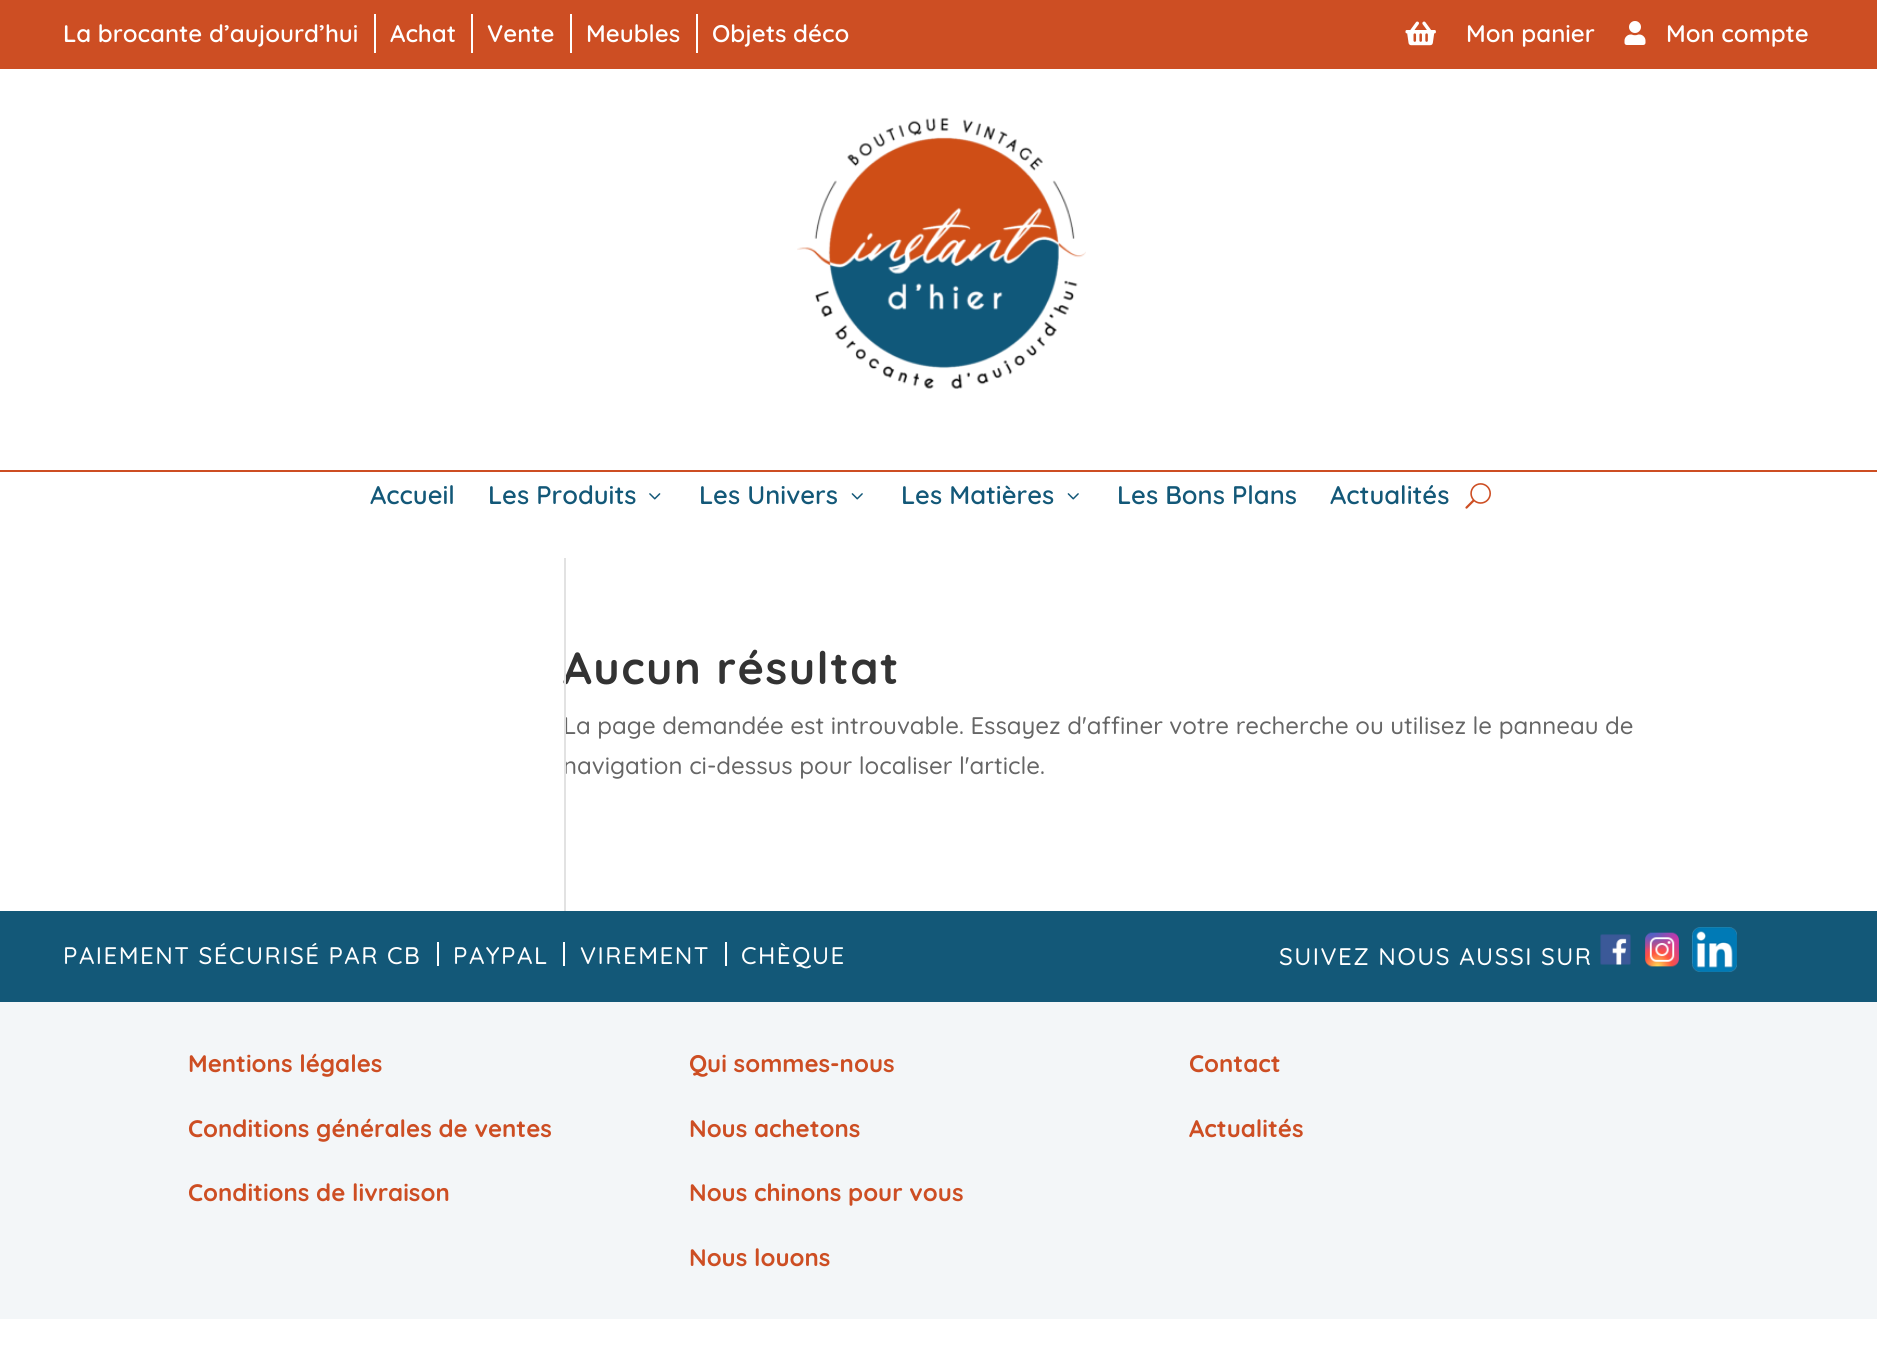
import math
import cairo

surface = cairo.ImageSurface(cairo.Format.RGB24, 1877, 1364)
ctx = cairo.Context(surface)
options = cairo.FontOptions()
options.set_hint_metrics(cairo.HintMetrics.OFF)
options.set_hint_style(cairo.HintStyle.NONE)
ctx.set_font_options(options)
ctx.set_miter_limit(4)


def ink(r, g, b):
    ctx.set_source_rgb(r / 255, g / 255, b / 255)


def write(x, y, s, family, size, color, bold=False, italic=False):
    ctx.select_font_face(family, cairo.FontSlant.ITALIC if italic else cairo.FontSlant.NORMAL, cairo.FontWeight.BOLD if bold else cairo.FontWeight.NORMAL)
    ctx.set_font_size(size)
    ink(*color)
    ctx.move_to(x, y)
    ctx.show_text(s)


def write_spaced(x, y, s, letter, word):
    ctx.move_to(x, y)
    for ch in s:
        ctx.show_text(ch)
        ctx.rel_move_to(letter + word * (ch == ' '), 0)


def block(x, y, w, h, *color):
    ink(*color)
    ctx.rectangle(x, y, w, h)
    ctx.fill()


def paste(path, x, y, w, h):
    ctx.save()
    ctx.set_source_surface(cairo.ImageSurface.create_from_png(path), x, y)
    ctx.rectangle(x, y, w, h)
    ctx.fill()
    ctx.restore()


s1 = dict(family="Quicksand SemiBold", size=24, color=(255, 255, 255))
s2 = dict(family="Quicksand SemiBold", size=25.5, color=(19, 88, 120))
s3 = dict(family="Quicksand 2 Light", size=24, color=(102, 102, 102))
s4 = dict(family="Quicksand Light", size=24, color=(205, 78, 35))

ink(255, 255, 255)
ctx.paint()
block(0, 0, 1877, 69, 205, 78, 35)
block(374, 14, 2, 39, 255, 255, 255)
write(63, 42, "La brocante d’aujourd’hui", **s1)
block(471, 14, 2, 39, 255, 255, 255)
write(390, 42, "Achat", **s1)
block(570, 14, 2, 39, 255, 255, 255)
write(487, 42, "Vente", **s1)
block(696, 14, 2, 39, 255, 255, 255)
write(586, 42, "Meubles", **s1)
write(712, 42, "Objets déco", **s1)
paste("pic1.png", 1405, 21, 31, 25)
write(1466, 42, "Mon panier", **s1)
paste("pic2.png", 1624, 21, 22, 24)
write(1666, 42, "Mon compte", **s1)
paste("pic3.png", 797, 117, 289, 272)
block(0, 470, 1877, 2, 205, 78, 35)
write(370, 504, "Accueil", **s2)
write(488, 504, "Les Produits", **s2)
paste("pic4.png", 649, 493, 12, 7)
write(699, 504, "Les Univers", **s2)
paste("pic5.png", 851, 493, 12, 7)
write(901, 504, "Les Matières", **s2)
paste("pic5.png", 1067, 493, 12, 7)
write(1117, 504, "Les Bons Plans", **s2)
write(1330, 504, "Actualités", **s2)
paste("pic6.png", 1465, 483, 26, 26)
ctx.select_font_face("Quicksand Light")
ctx.set_font_size(45)
ink(51, 51, 51)
write_spaced(563, 684, "Aucun résultat", 1.5, 0)
write(563, 734, "La page demandée est introuvable. Essayez d'affiner votre recherche ou utilisez le panneau de", **s3)
write(563, 774, "navigation ci-dessus pour localiser l'article.", **s3)
block(564, 558, 2, 353, 226, 226, 226)
block(0, 911, 1877, 91, 19, 88, 120)
block(437, 942, 2, 24, 255, 255, 255)
write_spaced(63, 964, "PAIEMENT SÉCURISÉ PAR CB", 1.5, 0)
block(563, 942, 2, 24, 255, 255, 255)
write_spaced(453, 964, "PAYPAL", 1.5, 0)
block(725, 942, 2, 24, 255, 255, 255)
write_spaced(580, 964, "VIREMENT", 1.5, 0)
write_spaced(741, 964, "CHÈQUE", 1.5, 0)
write_spaced(1279, 965, "SUIVEZ NOUS AUSSI SUR", 1.5, 0)
paste("pic7.png", 1600, 934, 31, 31)
paste("pic8.png", 1645, 932, 34, 35)
paste("pic9.png", 1692, 927, 45, 45)
block(0, 1002, 1877, 317, 243, 246, 248)
write(188, 1072, "Mentions légales", **s4)
write(188, 1137, "Conditions générales de ventes", **s4)
write(188, 1201, "Conditions de livraison", **s4)
write(689, 1072, "Qui sommes-nous", **s4)
write(689, 1137, "Nous achetons", **s4)
write(689, 1201, "Nous chinons pour vous", **s4)
write(689, 1266, "Nous louons", **s4)
write(1189, 1072, "Contact", **s4)
write(1189, 1137, "Actualités", **s4)
surface.write_to_png("screenshot.png")
